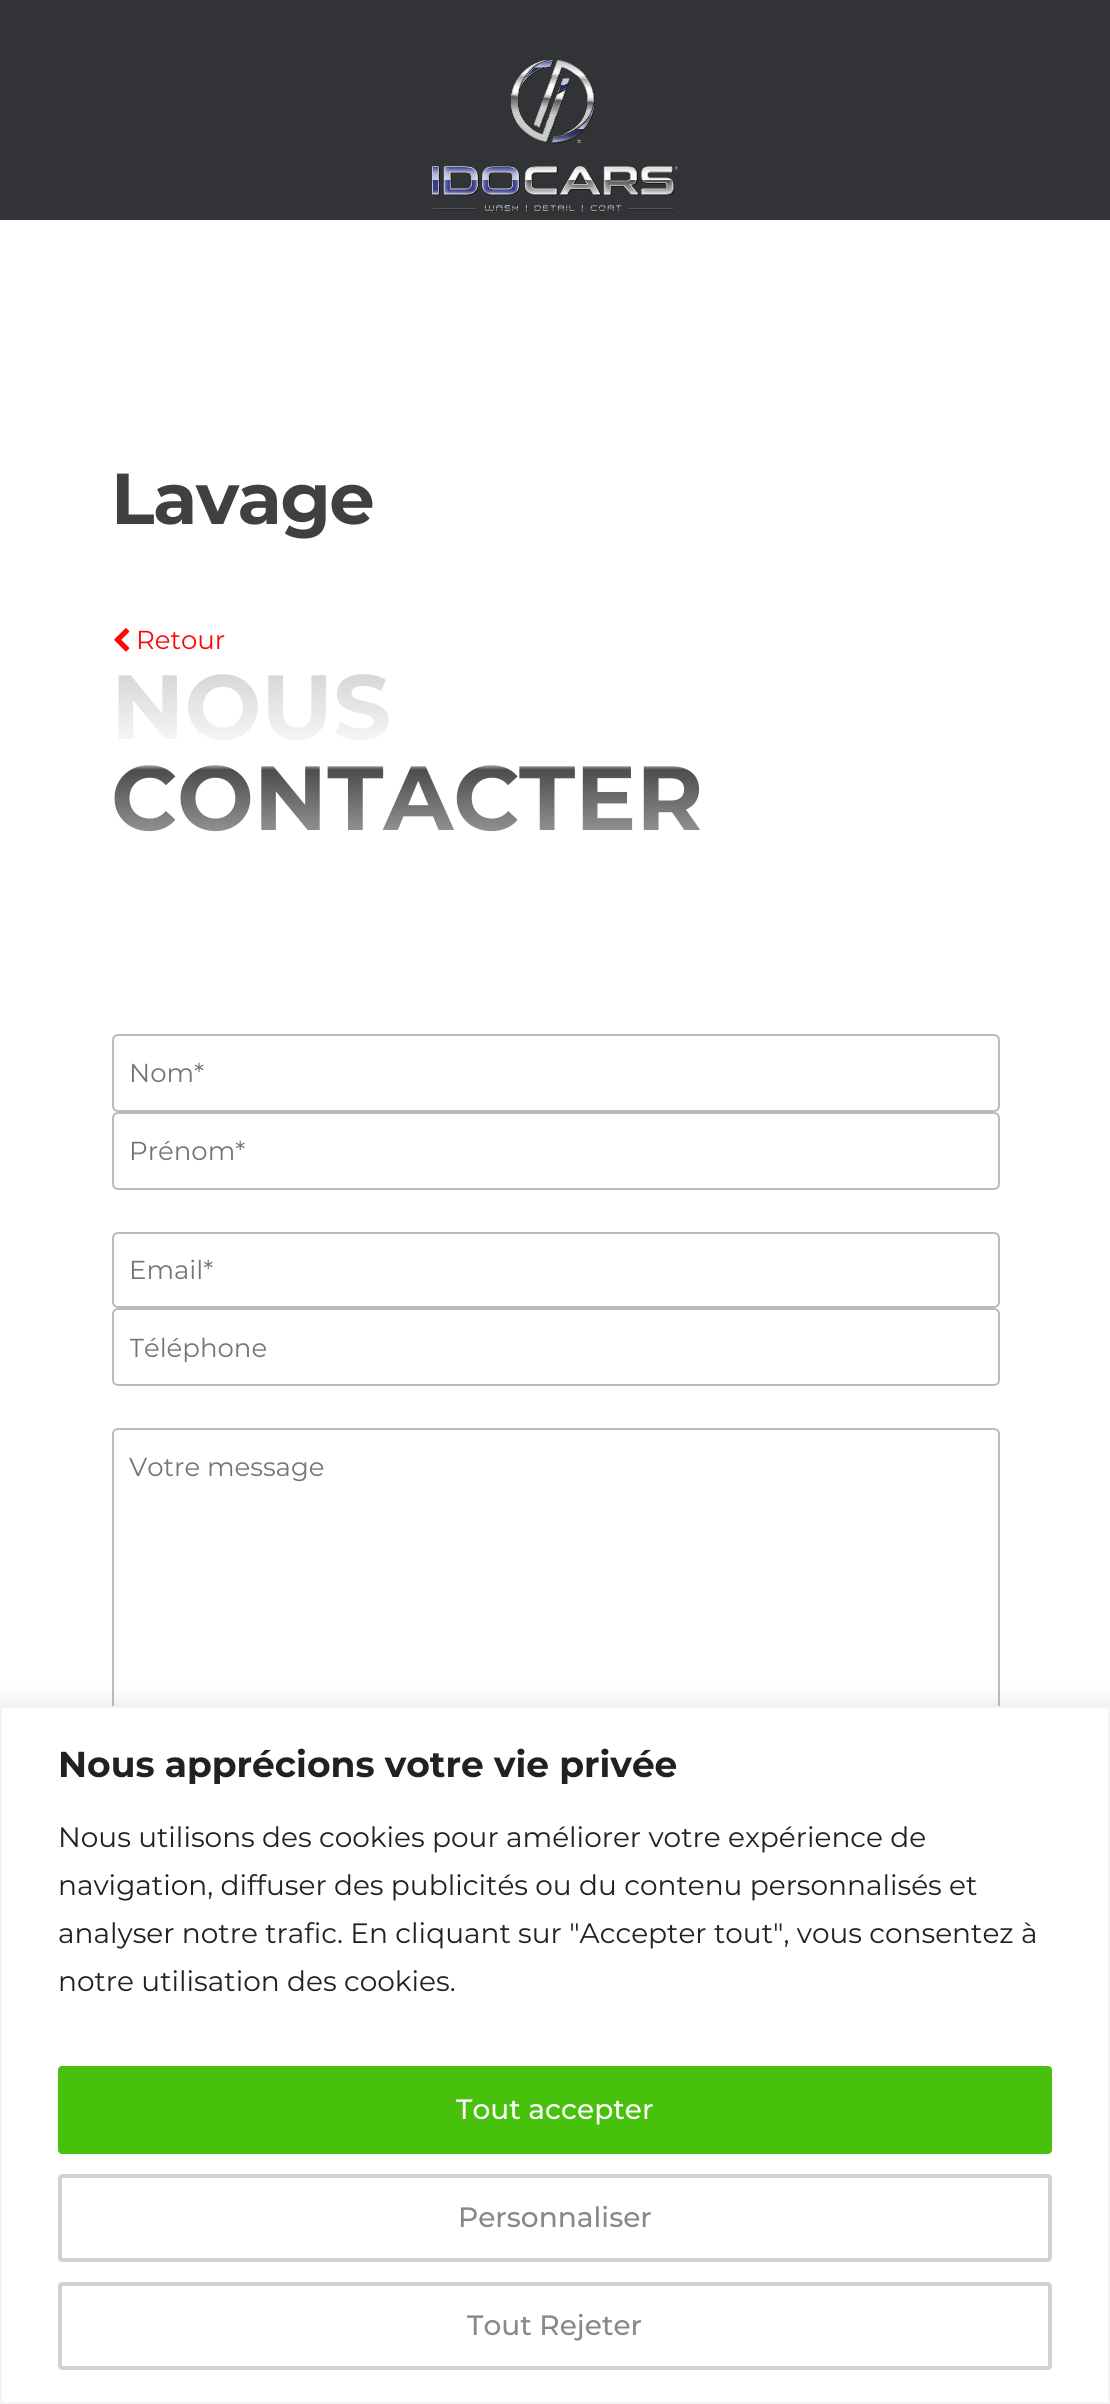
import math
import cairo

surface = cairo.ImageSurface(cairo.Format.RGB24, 1110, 2404)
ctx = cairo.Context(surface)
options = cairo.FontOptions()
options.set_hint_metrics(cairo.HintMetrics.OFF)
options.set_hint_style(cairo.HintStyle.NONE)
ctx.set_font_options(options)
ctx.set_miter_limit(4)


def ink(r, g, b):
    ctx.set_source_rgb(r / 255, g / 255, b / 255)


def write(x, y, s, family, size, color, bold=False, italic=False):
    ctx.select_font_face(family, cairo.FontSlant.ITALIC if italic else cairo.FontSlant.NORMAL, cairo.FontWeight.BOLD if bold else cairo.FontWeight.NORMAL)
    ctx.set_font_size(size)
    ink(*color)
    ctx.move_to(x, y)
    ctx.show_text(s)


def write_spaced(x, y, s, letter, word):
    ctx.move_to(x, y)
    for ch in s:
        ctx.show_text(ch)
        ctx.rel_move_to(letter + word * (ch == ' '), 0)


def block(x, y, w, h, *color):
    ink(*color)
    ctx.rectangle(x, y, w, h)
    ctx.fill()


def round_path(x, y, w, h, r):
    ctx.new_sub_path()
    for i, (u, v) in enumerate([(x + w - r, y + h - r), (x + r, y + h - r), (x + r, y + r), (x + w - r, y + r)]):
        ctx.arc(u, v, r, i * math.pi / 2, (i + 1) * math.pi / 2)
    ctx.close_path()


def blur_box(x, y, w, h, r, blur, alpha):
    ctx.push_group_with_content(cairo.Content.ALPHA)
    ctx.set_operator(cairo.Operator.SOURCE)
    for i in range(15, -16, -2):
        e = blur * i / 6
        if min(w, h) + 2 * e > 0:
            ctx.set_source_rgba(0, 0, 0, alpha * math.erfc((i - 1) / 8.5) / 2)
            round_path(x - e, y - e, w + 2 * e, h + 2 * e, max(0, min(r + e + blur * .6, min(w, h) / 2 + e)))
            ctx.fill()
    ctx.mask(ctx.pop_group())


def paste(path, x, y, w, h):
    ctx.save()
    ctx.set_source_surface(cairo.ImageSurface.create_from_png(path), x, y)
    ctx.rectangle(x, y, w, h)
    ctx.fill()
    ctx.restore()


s1 = dict(family="Montserrat", size=26, color=(255, 7, 7))
s2 = dict(family="Montserrat", size=26, color=(117, 117, 117))
s3 = dict(family="Montserrat", size=36, color=(33, 33, 33), bold=True)
s4 = dict(family="Montserrat", size=28, color=(33, 33, 33))
s5 = dict(family="Montserrat Medium", size=28, color=(255, 255, 255))
s6 = dict(family="Montserrat Medium", size=28, color=(135, 136, 138))

ink(255, 255, 255)
ctx.paint()
block(0, 0, 1110, 220, 49, 51, 54)
paste("pic1.png", 432, 60, 246, 152)
ctx.select_font_face("Montserrat", cairo.FontSlant.NORMAL, cairo.FontWeight.BOLD)
ctx.set_font_size(72)
ink(64, 64, 64)
write_spaced(111, 524, "Lavage", -1.5, 0)
paste("pic2.png", 114, 628, 16, 24)
write(136, 649, "Retour", **s1)
ctx.select_font_face("Montserrat", cairo.FontSlant.NORMAL, cairo.FontWeight.BOLD)
ctx.set_font_size(91)
gradient = cairo.LinearGradient(555, 883, 555, 661)
gradient.add_color_stop_rgba(0, 0.894, 0.894, 0.898, 1)
gradient.add_color_stop_rgba(0.15, 0.651, 0.647, 0.651, 1)
gradient.add_color_stop_rgba(0.51, 0.302, 0.302, 0.302, 1)
gradient.add_color_stop_rgba(0.55, 1, 1, 1, 1)
gradient.add_color_stop_rgba(1, 0.82, 0.816, 0.824, 1)
ctx.set_source(gradient)
ctx.move_to(111, 739)
ctx.show_text("NOUS")
ctx.move_to(111, 830)
ctx.show_text("CONTACTER")
round_path(113, 1035, 886, 76, 5)
ink(187, 187, 187)
ctx.stroke()
write(129, 1082, "Nom*", **s2)
round_path(113, 1113, 886, 76, 5)
ink(187, 187, 187)
ctx.stroke()
write(129, 1160, "Prénom*", **s2)
round_path(113, 1233, 886, 74, 5)
ink(187, 187, 187)
ctx.stroke()
write(129, 1279, "Email*", **s2)
round_path(113, 1309, 886, 76, 5)
ink(187, 187, 187)
ctx.stroke()
ctx.save()
ctx.rectangle(130, 1330, 852, 32)
ctx.clip()
write(129, 1357, "Téléphone", **s2)
ctx.restore()
round_path(113, 1429, 886, 450, 5)
ctx.stroke()
write(129, 1476, "Votre message", **s2)
ink(172, 171, 171)
blur_box(0, 1704, 1110, 698, 0, 10, 0.3)
ink(255, 255, 255)
ctx.rectangle(1, 1707, 1108, 696)
ctx.fill_preserve()
ink(244, 244, 244)
ctx.stroke()
write(58, 1777, "Nous apprécions votre vie privée", **s3)
write(58, 1847, "Nous utilisons des cookies pour améliorer votre expérience de", **s4)
write(58, 1895, "navigation, diffuser des publicités ou du contenu personnalisés et", **s4)
write(58, 1943, "analyser notre trafic. En cliquant sur \"Accepter tout\", vous consentez à", **s4)
write(58, 1991, "notre utilisation des cookies.", **s4)
ink(72, 193, 12)
round_path(60, 2068, 990, 84, 2)
ctx.fill_preserve()
ctx.set_line_width(4)
ctx.stroke()
write(456, 2119, "Tout accepter", **s5)
round_path(60, 2176, 990, 84, 2)
ink(210, 210, 210)
ctx.stroke()
write(458, 2227, "Personnaliser", **s6)
round_path(60, 2284, 990, 84, 2)
ink(210, 210, 210)
ctx.stroke()
write(467, 2335, "Tout Rejeter", **s6)
surface.write_to_png("screenshot.png")
